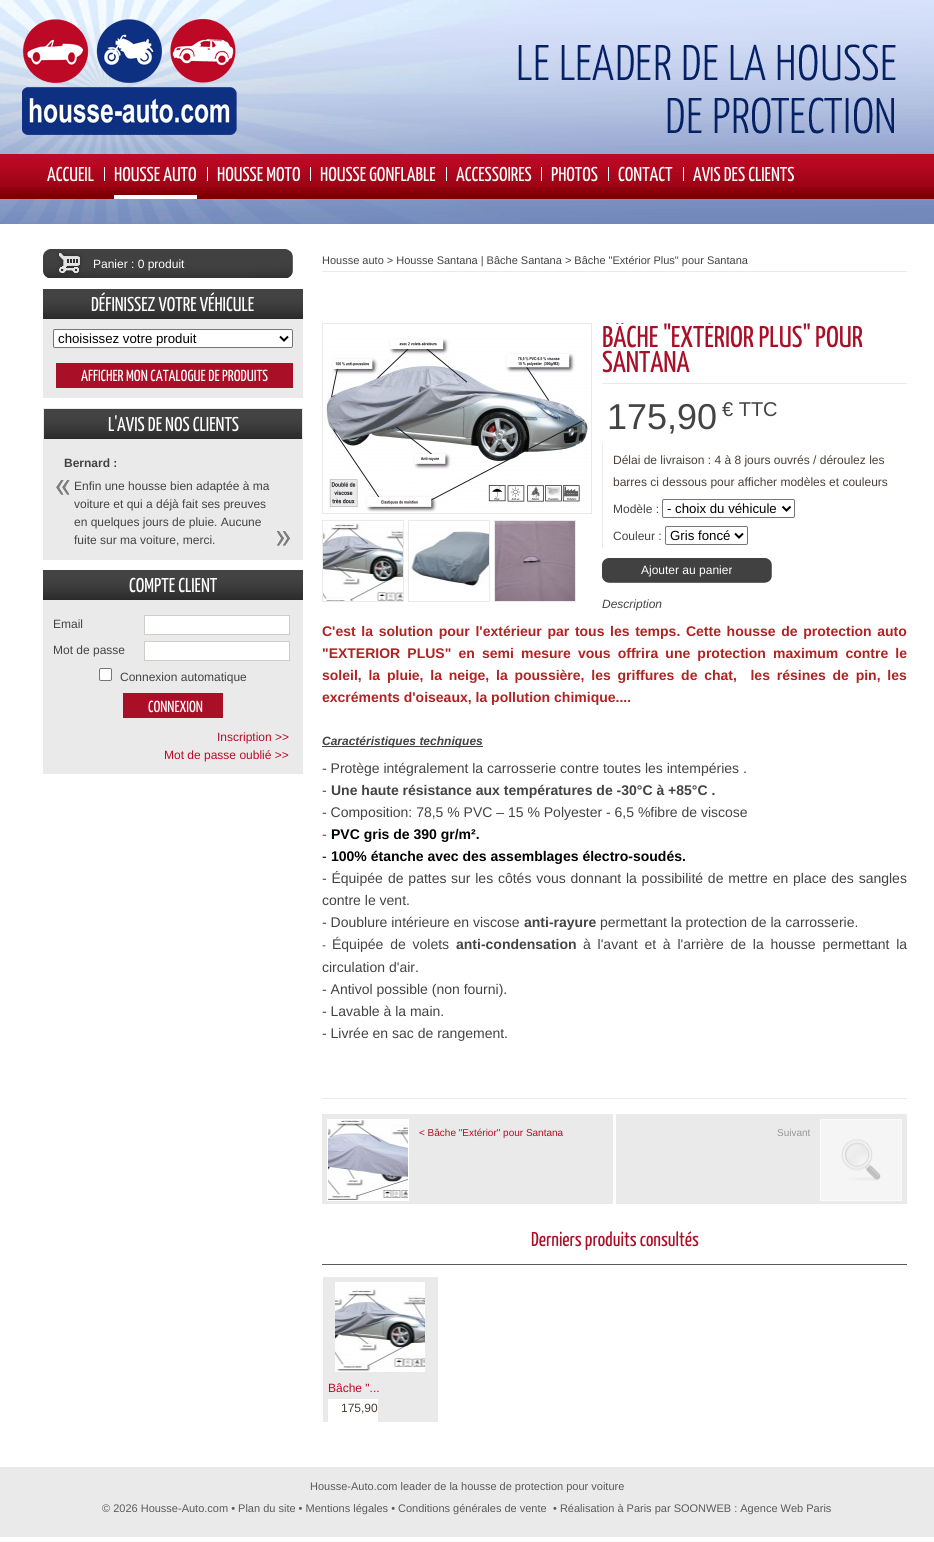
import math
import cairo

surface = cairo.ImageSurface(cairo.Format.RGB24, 934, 1542)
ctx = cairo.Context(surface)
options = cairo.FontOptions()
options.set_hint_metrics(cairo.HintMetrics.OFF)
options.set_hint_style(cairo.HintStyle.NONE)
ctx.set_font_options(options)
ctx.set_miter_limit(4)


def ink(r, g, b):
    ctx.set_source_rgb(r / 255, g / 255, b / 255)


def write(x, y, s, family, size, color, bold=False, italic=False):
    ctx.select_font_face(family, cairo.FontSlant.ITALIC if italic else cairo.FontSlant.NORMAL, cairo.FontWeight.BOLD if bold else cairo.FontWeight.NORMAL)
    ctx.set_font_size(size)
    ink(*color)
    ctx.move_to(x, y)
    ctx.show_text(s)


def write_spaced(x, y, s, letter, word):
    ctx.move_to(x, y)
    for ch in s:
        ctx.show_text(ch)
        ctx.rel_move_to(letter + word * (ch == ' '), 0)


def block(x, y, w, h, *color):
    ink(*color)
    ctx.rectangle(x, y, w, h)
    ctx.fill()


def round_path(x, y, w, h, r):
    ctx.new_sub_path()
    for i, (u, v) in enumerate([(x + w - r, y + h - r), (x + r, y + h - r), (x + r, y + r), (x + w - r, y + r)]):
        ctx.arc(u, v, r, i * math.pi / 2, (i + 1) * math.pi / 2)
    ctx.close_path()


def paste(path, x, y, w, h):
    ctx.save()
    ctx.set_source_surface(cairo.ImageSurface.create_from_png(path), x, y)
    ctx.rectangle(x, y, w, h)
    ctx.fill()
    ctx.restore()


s1 = dict(family="Yanone Kaffeesatz", size=20, color=(255, 255, 255))
s2 = dict(family="Liberation Sans", size=12, color=(255, 255, 255))
s3 = dict(family="Liberation Sans", size=13.25, color=(0, 0, 0))
s4 = dict(family="Yanone Kaffeesatz", size=16, color=(255, 255, 255))
s5 = dict(family="Liberation Sans", size=12, color=(67, 67, 67), bold=True)
s6 = dict(family="Liberation Sans", size=12, color=(67, 67, 67))
s7 = dict(family="Liberation Sans", size=12, color=(188, 9, 37))
s8 = dict(family="Liberation Sans", size=11, color=(67, 67, 67))
s9 = dict(family="Yanone Kaffeesatz", size=30, color=(170, 15, 40))
s10 = dict(family="Liberation Sans", size=36, color=(67, 67, 67))
s11 = dict(family="Liberation Sans", size=20, color=(67, 67, 67))
s12 = dict(family="Liberation Sans", size=12, color=(72, 64, 56))
s13 = dict(family="Liberation Sans", size=12, color=(67, 67, 67), italic=True)
s14 = dict(family="Liberation Sans", size=14, color=(178, 34, 34), bold=True)
s15 = dict(family="Liberation Sans", size=12, color=(67, 67, 67), bold=True, italic=True)
s16 = dict(family="Liberation Sans", size=14, color=(67, 67, 67))
s17 = dict(family="Liberation Sans", size=14, color=(67, 67, 67), bold=True)
s18 = dict(family="Liberation Sans", size=14, color=(178, 34, 34))
s19 = dict(family="Liberation Sans", size=14, color=(0, 0, 0), bold=True)
s20 = dict(family="Liberation Sans", size=14, color=(0, 0, 0))
s21 = dict(family="Liberation Sans", size=10, color=(188, 9, 37))
s22 = dict(family="Liberation Sans", size=10, color=(151, 151, 151))
s23 = dict(family="Yanone Kaffeesatz", size=20, color=(170, 15, 40))
s24 = dict(family="Liberation Sans", size=11, color=(90, 90, 90))

ink(255, 255, 255)
ctx.paint()
paste("pic1.png", 0, 0, 934, 224)
write(47, 181, "ACCUEIL", **s1)
block(104, 167, 1, 14, 255, 255, 255)
block(114, 195, 83, 4, 255, 255, 255)
write(114, 181, "HOUSSE AUTO", **s1)
block(207, 167, 1, 14, 255, 255, 255)
write(217, 181, "HOUSSE MOTO", **s1)
block(310, 167, 1, 14, 255, 255, 255)
write(320, 181, "HOUSSE GONFLABLE", **s1)
block(446, 167, 1, 14, 255, 255, 255)
write(456, 181, "ACCESSOIRES", **s1)
block(541, 167, 1, 14, 255, 255, 255)
write(551, 181, "PHOTOS", **s1)
block(608, 167, 1, 14, 255, 255, 255)
write(618, 181, "CONTACT", **s1)
block(683, 167, 1, 14, 255, 255, 255)
write(693, 181, "AVIS DES CLIENTS", **s1)
paste("pic2.png", 43, 249, 250, 29)
write(93, 268, "Panier : 0 produit", **s2)
block(43, 319, 260, 79, 234, 234, 234)
paste("pic3.png", 43, 289, 260, 30)
write(91, 311, "DÉFINISSEZ VOTRE VÉHICULE", **s1)
round_path(53.5, 329.5, 239, 18, 1.5)
ctx.fill_preserve()
ink(118, 118, 118)
ctx.set_line_width(1)
ctx.stroke()
ctx.new_path()
ctx.move_to(280, 336.5)
ctx.line_to(284, 340.5)
ctx.line_to(288, 336.5)
ink(0, 0, 0)
ctx.set_line_width(2)
ctx.stroke()
write(58, 343, "choisissez votre produit", **s3)
block(56, 363, 237, 25, 170, 15, 40)
write(81, 381, "AFFICHER MON CATALOGUE DE PRODUITS", **s4)
block(43, 408, 260, 152, 234, 234, 234)
paste("pic4.png", 44, 409, 258, 30)
write(108, 431, "L'AVIS DE NOS CLIENTS", **s1)
write(64, 467, "Bernard :", **s5)
paste("pic5.png", 56, 480, 14, 15)
paste("pic6.png", 277, 531, 13, 15)
write(74, 490, "Enfin une housse bien adaptée à ma", **s6)
write(74, 508, "voiture et qui a déjà fait ses preuves", **s6)
write(74, 526, "en quelques jours de pluie. Aucune", **s6)
write(74, 544, "fuite sur ma voiture, merci.", **s6)
block(43, 600, 260, 174, 234, 234, 234)
paste("pic3.png", 43, 570, 260, 30)
write(129, 592, "COMPTE CLIENT", **s1)
write(53, 628, "Email", **s6)
ink(255, 255, 255)
ctx.rectangle(144.5, 615.5, 145, 19)
ctx.fill_preserve()
ink(209, 204, 200)
ctx.set_line_width(1)
ctx.stroke()
write(53, 654, "Mot de passe", **s6)
ink(255, 255, 255)
ctx.rectangle(144.5, 641.5, 145, 19)
ctx.fill_preserve()
ink(209, 204, 200)
ctx.stroke()
ink(255, 255, 255)
round_path(99.5, 668.5, 12, 12, 1.5)
ctx.fill_preserve()
ink(118, 118, 118)
ctx.stroke()
write(120, 681, "Connexion automatique", **s6)
block(123, 693, 100, 25, 170, 15, 40)
write(148, 712, "CONNEXION", **s4)
write(217, 741, "Inscription >>", **s7)
write(164, 759, "Mot de passe oublié >>", **s7)
block(322, 271, 585, 1, 234, 234, 234)
write(322, 264, "Housse auto > Housse Santana | Bâche Santana > Bâche \"Extérior Plus\" pour Santana", **s8)
block(322, 1098, 585, 1, 234, 234, 234)
ctx.rectangle(322.5, 323.5, 269, 190)
ctx.stroke()
paste("pic7.png", 323, 338, 268, 174)
paste("pic8.png", 323, 522, 80, 79)
ctx.rectangle(322.5, 520.5, 81, 81)
ctx.stroke()
paste("pic9.png", 409, 531, 80, 55)
ctx.rectangle(408.5, 520.5, 81, 81)
ctx.stroke()
paste("pic10.png", 495, 521, 80, 80)
ctx.rectangle(494.5, 520.5, 81, 81)
ctx.stroke()
block(602, 383, 305, 1, 234, 234, 234)
ctx.save()
ctx.rectangle(322, 323, 585, 775)
ctx.clip()
write(602, 347, "BÂCHE \"EXTÉRIOR PLUS\" POUR", **s9)
ctx.restore()
write(602, 372, "SANTANA", **s9)
write(607, 429, "175,90", **s10)
write(722, 416, "€ TTC", **s11)
block(602, 443, 1, 105, 234, 234, 234)
write(613, 464, "Délai de livraison : 4 à 8 jours ouvrés / déroulez les", **s12)
write(613, 486, "barres ci dessous pour afficher modèles et couleurs", **s12)
write(613, 513, "Modèle :", **s6)
round_path(662.5, 499.5, 132, 18, 1.5)
ink(118, 118, 118)
ctx.stroke()
ctx.new_path()
ctx.move_to(782.5, 506.5)
ctx.line_to(786.5, 510.5)
ctx.line_to(790.5, 506.5)
ink(0, 0, 0)
ctx.set_line_width(2)
ctx.stroke()
write(667, 513, "- choix du véhicule", **s3)
write(613, 540, "Couleur :", **s6)
round_path(665.5, 526.5, 82, 18, 1.5)
ink(118, 118, 118)
ctx.set_line_width(1)
ctx.stroke()
ctx.new_path()
ctx.move_to(735, 533.5)
ctx.line_to(739, 537.5)
ctx.line_to(743, 533.5)
ink(0, 0, 0)
ctx.set_line_width(2)
ctx.stroke()
write(670, 540, "Gris foncé", **s3)
paste("pic11.png", 602, 558, 170, 25)
write(641, 574, "Ajouter au panier", **s2)
write(602, 608, "Description", **s13)
ctx.select_font_face("Liberation Sans", cairo.FontSlant.NORMAL, cairo.FontWeight.BOLD)
ctx.set_font_size(14)
ink(178, 34, 34)
write_spaced(322, 636, "C'est la solution pour l'extérieur par tous les temps. Cette housse de protection auto", 0, 1.75)
write_spaced(322, 658, "\"EXTERIOR PLUS\" en semi mesure vous offrira une protection maximum contre le", 0, 3.25)
write_spaced(322, 680, "soleil, la pluie, la neige, la poussière, les griffures de chat,  les résines de pin, les", 0, 2.9)
write(322, 702, "excréments d'oiseaux, la pollution chimique....", **s14)
block(322, 746, 161, 1, 67, 67, 67)
write(322, 745, "Caractéristiques techniques", **s15)
write(322, 773, "- Protège intégralement la carrosserie contre toutes les intempéries .", **s16)
write(322, 795, "-", **s16)
write(331, 795, "Une haute résistance aux températures de -30°C à +85°C .", **s17)
write(322, 817, "- Composition: 78,5 % PVC – 15 % Polyester - 6,5 %fibre de viscose", **s16)
write(322, 839, "-", **s18)
write(331, 839, "PVC gris de 390 gr/m².", **s19)
write(322, 861, "-", **s20)
write(331, 861, "100% étanche avec des assemblages électro-soudés.", **s19)
ctx.select_font_face("Liberation Sans")
ink(67, 67, 67)
write_spaced(322, 883, "- Équipée", 0, 0.9)
write_spaced(388, 883, "de pattes", 0, 0.9)
write_spaced(451, 883, "sur les côtés vous donnant la possibilité de mettre en place des sangles", 0, 0.9)
write(322, 905, "contre le vent.", **s16)
write(322, 927, "- Doublure intérieure en viscose", **s16)
write(524, 927, "anti-rayure", **s17)
write(600, 927, "permettant la protection de la carrosserie.", **s16)
write(322, 949, "-", **s6)
ctx.set_font_size(14)
write_spaced(332, 949, "Équipée de volets", 0, 2.9)
write(456, 949, "anti-condensation", **s17)
ctx.select_font_face("Liberation Sans")
write_spaced(583, 949, "à l'avant et à l'arrière de la housse permettant la", 0, 2.9)
write(322, 972, "circulation d'air.", **s16)
write(322, 994, "- Antivol possible (non fourni).", **s16)
write(322, 1016, "- Lavable à la main.", **s16)
write(322, 1038, "- Livrée en sac de rangement.", **s16)
block(322, 1114, 291, 90, 234, 234, 234)
paste("pic12.png", 328, 1120, 80, 80)
ctx.rectangle(327.5, 1119.5, 81, 81)
ink(255, 255, 255)
ctx.set_line_width(1)
ctx.stroke()
write(419, 1136, "< Bâche \"Extérior\" pour Santana", **s21)
block(616, 1114, 291, 90, 234, 234, 234)
write(777, 1136, "Suivant", **s22)
paste("pic13.png", 821, 1120, 80, 80)
ctx.rectangle(820.5, 1119.5, 81, 81)
ink(250, 250, 250)
ctx.stroke()
block(322, 1264, 585, 1, 90, 90, 90)
write(531, 1246, "Derniers produits consultés", **s23)
block(323, 1277, 115, 145, 234, 234, 234)
paste("pic14.png", 335, 1282, 90, 90)
write(328, 1392, "Bâche \"...", **s7)
block(328, 1399, 50, 23, 255, 255, 255)
write(341, 1412, "175,90", **s12)
block(0, 1467, 934, 70, 234, 234, 234)
write(310, 1490, "Housse-Auto.com leader de la housse de protection pour voiture", **s24)
write(102, 1512, "© 2026 Housse-Auto.com • Plan du site • Mentions légales • Conditions générales de vente", **s24)
write(553, 1512, "• Réalisation à Paris par SOONWEB : Agence Web Paris", **s24)
surface.write_to_png("screenshot.png")
